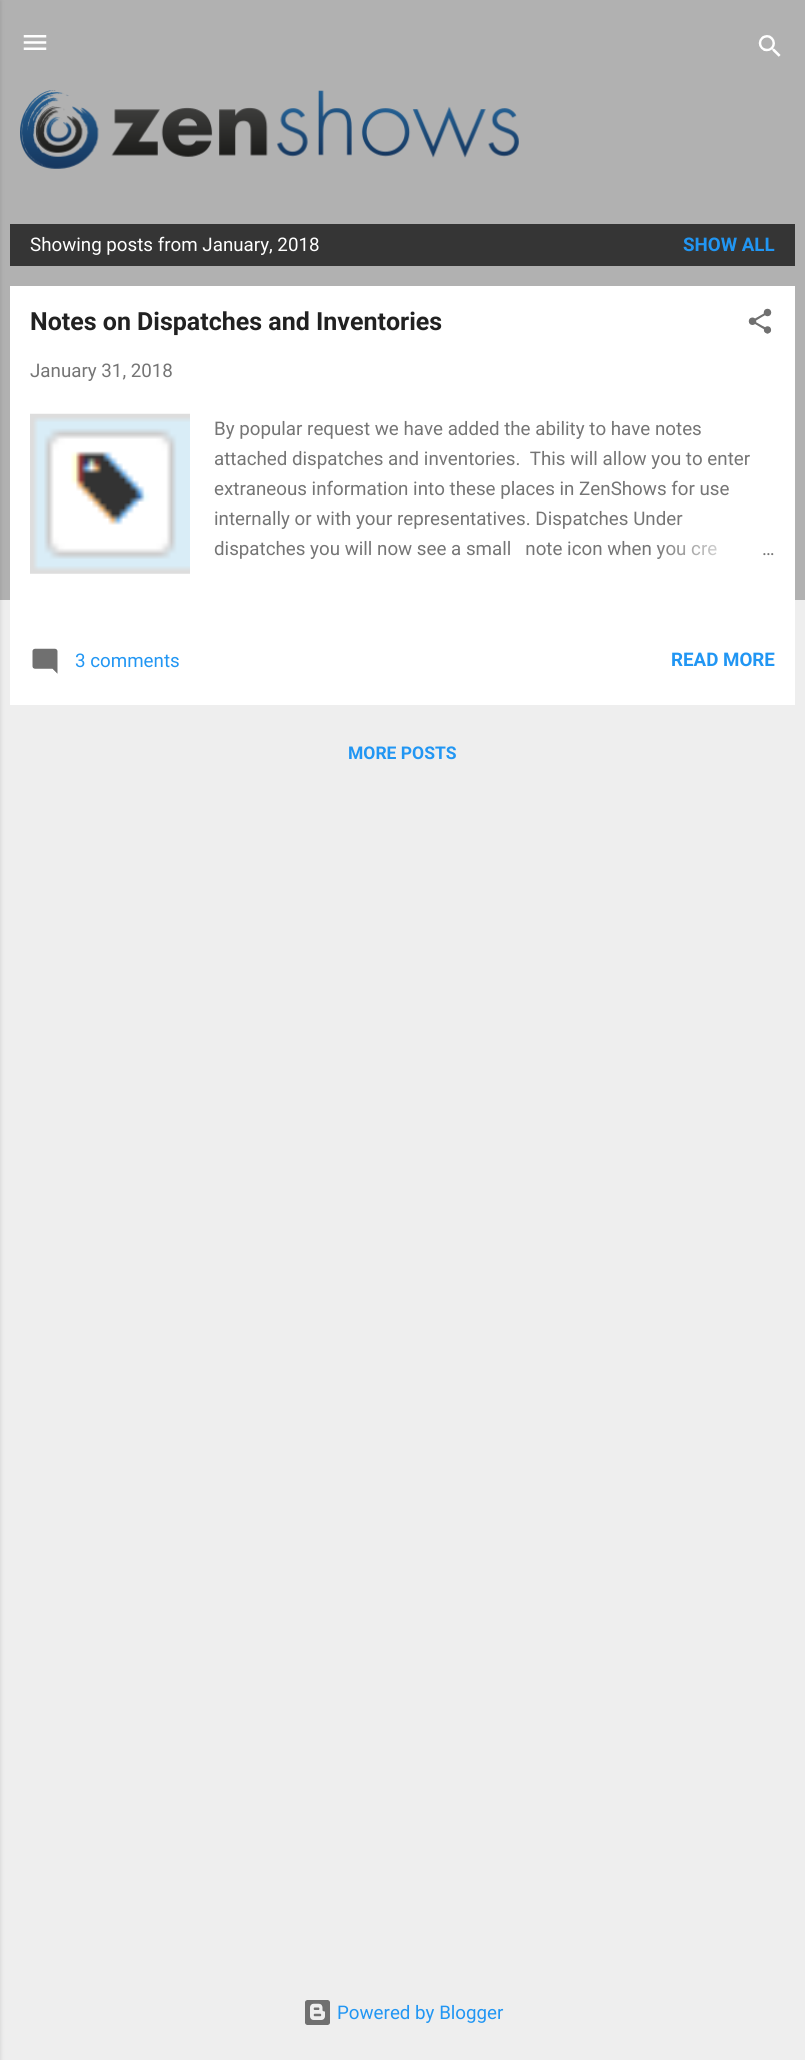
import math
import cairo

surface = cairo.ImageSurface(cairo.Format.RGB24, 805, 2060)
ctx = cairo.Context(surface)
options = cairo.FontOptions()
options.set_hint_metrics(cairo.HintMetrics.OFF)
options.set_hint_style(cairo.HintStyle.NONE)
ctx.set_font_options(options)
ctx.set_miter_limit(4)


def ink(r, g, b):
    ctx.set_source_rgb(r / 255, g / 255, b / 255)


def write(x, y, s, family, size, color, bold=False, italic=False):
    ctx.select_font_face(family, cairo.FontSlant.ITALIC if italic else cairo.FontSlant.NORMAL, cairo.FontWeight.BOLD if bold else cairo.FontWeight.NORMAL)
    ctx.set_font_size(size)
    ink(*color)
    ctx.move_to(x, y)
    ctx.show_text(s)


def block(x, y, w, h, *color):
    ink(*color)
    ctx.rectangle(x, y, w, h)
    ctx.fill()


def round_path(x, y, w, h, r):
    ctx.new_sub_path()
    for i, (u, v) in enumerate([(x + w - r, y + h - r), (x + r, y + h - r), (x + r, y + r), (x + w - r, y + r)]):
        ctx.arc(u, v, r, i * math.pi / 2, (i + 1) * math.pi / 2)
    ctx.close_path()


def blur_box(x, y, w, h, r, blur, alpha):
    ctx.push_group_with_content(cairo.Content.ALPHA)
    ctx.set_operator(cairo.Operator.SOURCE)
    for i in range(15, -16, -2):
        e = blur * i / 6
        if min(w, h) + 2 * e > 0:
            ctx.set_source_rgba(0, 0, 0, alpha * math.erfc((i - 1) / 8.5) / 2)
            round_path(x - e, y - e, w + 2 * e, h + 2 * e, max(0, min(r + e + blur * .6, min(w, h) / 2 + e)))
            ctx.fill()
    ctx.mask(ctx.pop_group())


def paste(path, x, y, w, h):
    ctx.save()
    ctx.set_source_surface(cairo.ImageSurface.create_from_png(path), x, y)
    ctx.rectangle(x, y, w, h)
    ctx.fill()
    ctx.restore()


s1 = dict(family="Roboto", size=18.75, color=(255, 255, 255))
s2 = dict(family="Roboto", size=18.75, color=(33, 150, 243), bold=True)
s3 = dict(family="Roboto", size=25, color=(33, 33, 33), bold=True)
s4 = dict(family="Roboto", size=18.75, color=(117, 117, 117))
s5 = dict(family="Roboto", size=18.75, color=(33, 150, 243))
s6 = dict(family="Roboto", size=17.5, color=(33, 150, 243), bold=True)

ink(238, 238, 238)
ctx.paint()
block(0, 0, 805, 600, 177, 177, 177)
ink(0, 0, 0)
blur_box(-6, 1, 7, 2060, 0, 2, 0.1)
paste("pic1.png", 23, 35, 24, 15)
paste("pic2.png", 758, 35, 23, 22)
paste("pic3.png", 20, 90, 499, 79)
block(10, 224, 785, 42, 53, 53, 53)
write(30, 251, "Showing posts from January, 2018", **s1)
write(683, 251, "SHOW ALL", **s2)
block(10, 286, 785, 419, 255, 255, 255)
write(30, 330, "Notes on Dispatches and Inventories", **s3)
paste("pic4.png", 748, 308, 24, 26)
write(30, 377, "January 31, 2018", **s4)
paste("pic5.png", 30, 413, 160, 161)
write(214, 435, "By popular request we have added the ability to have notes", **s4)
write(214, 465, "attached dispatches and inventories.  This will allow you to enter", **s4)
write(214, 495, "extraneous information into these places in ZenShows for use", **s4)
write(214, 525, "internally or with your representatives. Dispatches Under", **s4)
write(214, 555, "dispatches you will now see a small   note icon when you cre", **s4)
gradient = cairo.LinearGradient(775, 549, 655, 549)
gradient.add_color_stop_rgba(0, 1, 1, 1, 1)
gradient.add_color_stop_rgba(0.2, 1, 1, 1, 1)
gradient.add_color_stop_rgba(1, 1, 1, 1, 0)
ctx.set_source(gradient)
ctx.rectangle(657, 544, 60, 15)
ctx.fill()
write(762, 555, "…", **s4)
paste("pic6.png", 32, 648, 26, 26)
write(75, 667, "3 comments", **s5)
write(671, 666, "READ MORE", **s2)
write(348, 759, "MORE POSTS", **s6)
paste("pic7.png", 305, 2000, 25, 25)
write(337, 2019, "Powered by Blogger", **s5)
surface.write_to_png("screenshot.png")
